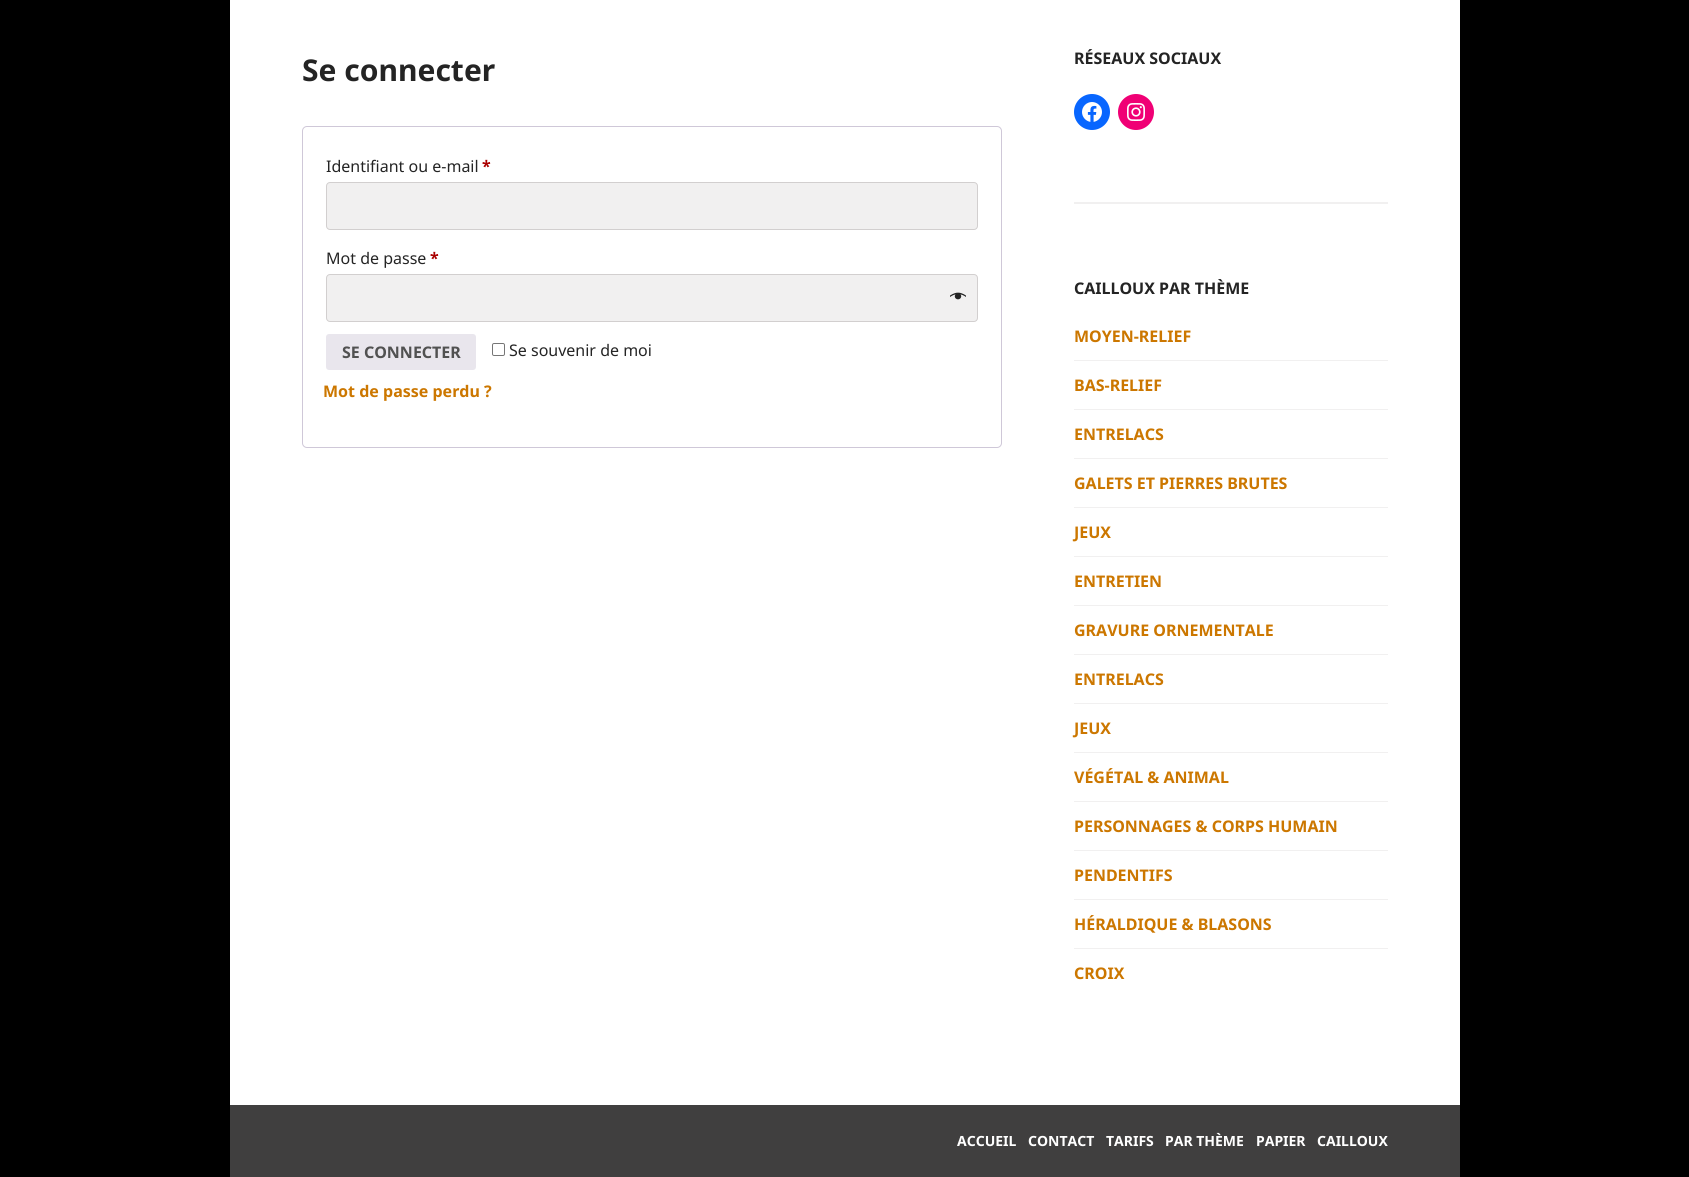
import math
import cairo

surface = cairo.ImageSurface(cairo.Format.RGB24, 1689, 1177)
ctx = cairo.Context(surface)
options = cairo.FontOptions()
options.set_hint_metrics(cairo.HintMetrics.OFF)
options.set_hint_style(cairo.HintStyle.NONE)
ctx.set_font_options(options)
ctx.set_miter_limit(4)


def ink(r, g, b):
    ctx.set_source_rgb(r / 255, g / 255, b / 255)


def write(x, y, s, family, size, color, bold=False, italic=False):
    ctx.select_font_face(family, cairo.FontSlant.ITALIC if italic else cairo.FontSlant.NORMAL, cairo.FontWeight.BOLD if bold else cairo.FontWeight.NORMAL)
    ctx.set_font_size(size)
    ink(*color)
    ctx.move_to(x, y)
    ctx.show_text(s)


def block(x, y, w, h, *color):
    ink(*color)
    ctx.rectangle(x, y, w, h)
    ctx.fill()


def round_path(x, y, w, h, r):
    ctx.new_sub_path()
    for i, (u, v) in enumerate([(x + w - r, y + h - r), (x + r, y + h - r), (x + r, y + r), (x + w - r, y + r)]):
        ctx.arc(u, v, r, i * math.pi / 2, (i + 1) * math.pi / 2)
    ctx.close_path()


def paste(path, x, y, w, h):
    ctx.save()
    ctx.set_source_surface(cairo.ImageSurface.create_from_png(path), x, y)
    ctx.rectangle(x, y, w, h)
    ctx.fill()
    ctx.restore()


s1 = dict(family="Noto Sans", size=30, color=(36, 36, 36), bold=True)
s2 = dict(family="Noto Sans", size=16, color=(36, 36, 36))
s3 = dict(family="Noto Sans", size=16, color=(170, 0, 0), bold=True)
s4 = dict(family="Noto Sans", size=16, color=(81, 81, 81), bold=True)
s5 = dict(family="Noto Sans", size=16, color=(204, 119, 0), bold=True)
s6 = dict(family="Noto Sans", size=16, color=(36, 36, 36), bold=True)
s7 = dict(family="Noto Sans", size=14, color=(255, 255, 255), bold=True)

ink(0, 0, 0)
ctx.paint()
block(230, 0, 1230, 1105, 255, 255, 255)
write(302, 81, "Se connecter", **s1)
round_path(302.5, 126.5, 699, 321, 4.5)
ink(207, 200, 216)
ctx.set_line_width(1)
ctx.stroke()
write(326, 172, "Identifiant ou e-mail", **s2)
write(482, 172, "*", **s3)
ink(241, 240, 240)
round_path(326.5, 182.5, 651, 47, 3.5)
ctx.fill_preserve()
ink(210, 207, 207)
ctx.stroke()
write(326, 264, "Mot de passe", **s2)
write(430, 264, "*", **s3)
ink(241, 240, 240)
round_path(326.5, 274.5, 651, 47, 3.5)
ctx.fill_preserve()
ink(210, 207, 207)
ctx.stroke()
paste("pic1.png", 950, 292, 16, 8)
ink(233, 230, 237)
round_path(326, 334, 150, 36, 3)
ctx.fill()
write(342, 358, "SE CONNECTER", **s4)
round_path(492.5, 343.5, 12, 12, 1.5)
ink(118, 118, 118)
ctx.stroke()
write(509, 356, "Se souvenir de moi", **s2)
write(323, 397, "Mot de passe perdu ?", **s5)
write(1074, 64, "RÉSEAUX SOCIAUX", **s6)
ink(8, 102, 255)
ctx.new_path()
ctx.arc(1092, 112, 18, 0, 2 * math.pi)
ctx.fill()
paste("pic2.png", 1082, 102, 20, 20)
ink(240, 0, 117)
ctx.arc(1136, 112, 18, 0, 2 * math.pi)
ctx.fill()
paste("pic3.png", 1127, 103, 18, 18)
block(1074, 202, 314, 2, 241, 240, 240)
write(1074, 294, "CAILLOUX PAR THÈME", **s6)
write(1074, 342, "MOYEN-RELIEF", **s5)
block(1074, 360, 314, 1, 241, 240, 240)
write(1074, 391, "BAS-RELIEF", **s5)
block(1074, 409, 314, 1, 241, 240, 240)
write(1074, 440, "ENTRELACS", **s5)
block(1074, 458, 314, 1, 241, 240, 240)
write(1074, 489, "GALETS ET PIERRES BRUTES", **s5)
block(1074, 507, 314, 1, 241, 240, 240)
write(1074, 538, "JEUX", **s5)
block(1074, 556, 314, 1, 241, 240, 240)
write(1074, 587, "ENTRETIEN", **s5)
block(1074, 605, 314, 1, 241, 240, 240)
write(1074, 636, "GRAVURE ORNEMENTALE", **s5)
block(1074, 654, 314, 1, 241, 240, 240)
write(1074, 685, "ENTRELACS", **s5)
block(1074, 703, 314, 1, 241, 240, 240)
write(1074, 734, "JEUX", **s5)
block(1074, 752, 314, 1, 241, 240, 240)
write(1074, 783, "VÉGÉTAL & ANIMAL", **s5)
block(1074, 801, 314, 1, 241, 240, 240)
write(1074, 832, "PERSONNAGES & CORPS HUMAIN", **s5)
block(1074, 850, 314, 1, 241, 240, 240)
write(1074, 881, "PENDENTIFS", **s5)
block(1074, 899, 314, 1, 241, 240, 240)
write(1074, 930, "HÉRALDIQUE & BLASONS", **s5)
block(1074, 948, 314, 1, 241, 240, 240)
write(1074, 979, "CROIX", **s5)
block(230, 1105, 1230, 72, 64, 63, 63)
write(957, 1146, "ACCUEIL", **s7)
write(1028, 1146, "CONTACT", **s7)
write(1106, 1146, "TARIFS", **s7)
write(1165, 1146, "PAR THÈME", **s7)
write(1256, 1146, "PAPIER", **s7)
write(1317, 1146, "CAILLOUX", **s7)
surface.write_to_png("screenshot.png")
